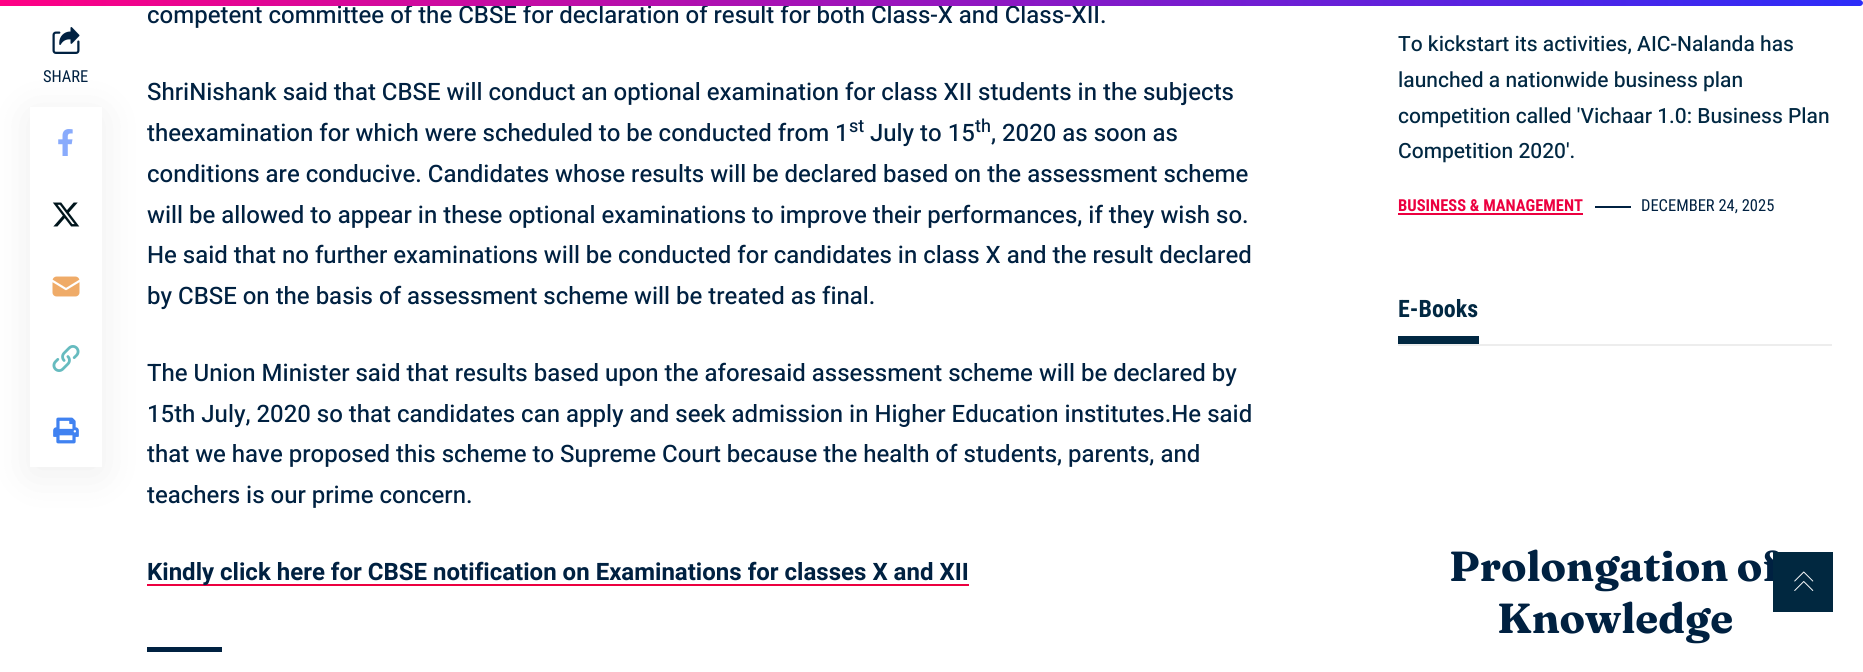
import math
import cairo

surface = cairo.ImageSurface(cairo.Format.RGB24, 1863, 672)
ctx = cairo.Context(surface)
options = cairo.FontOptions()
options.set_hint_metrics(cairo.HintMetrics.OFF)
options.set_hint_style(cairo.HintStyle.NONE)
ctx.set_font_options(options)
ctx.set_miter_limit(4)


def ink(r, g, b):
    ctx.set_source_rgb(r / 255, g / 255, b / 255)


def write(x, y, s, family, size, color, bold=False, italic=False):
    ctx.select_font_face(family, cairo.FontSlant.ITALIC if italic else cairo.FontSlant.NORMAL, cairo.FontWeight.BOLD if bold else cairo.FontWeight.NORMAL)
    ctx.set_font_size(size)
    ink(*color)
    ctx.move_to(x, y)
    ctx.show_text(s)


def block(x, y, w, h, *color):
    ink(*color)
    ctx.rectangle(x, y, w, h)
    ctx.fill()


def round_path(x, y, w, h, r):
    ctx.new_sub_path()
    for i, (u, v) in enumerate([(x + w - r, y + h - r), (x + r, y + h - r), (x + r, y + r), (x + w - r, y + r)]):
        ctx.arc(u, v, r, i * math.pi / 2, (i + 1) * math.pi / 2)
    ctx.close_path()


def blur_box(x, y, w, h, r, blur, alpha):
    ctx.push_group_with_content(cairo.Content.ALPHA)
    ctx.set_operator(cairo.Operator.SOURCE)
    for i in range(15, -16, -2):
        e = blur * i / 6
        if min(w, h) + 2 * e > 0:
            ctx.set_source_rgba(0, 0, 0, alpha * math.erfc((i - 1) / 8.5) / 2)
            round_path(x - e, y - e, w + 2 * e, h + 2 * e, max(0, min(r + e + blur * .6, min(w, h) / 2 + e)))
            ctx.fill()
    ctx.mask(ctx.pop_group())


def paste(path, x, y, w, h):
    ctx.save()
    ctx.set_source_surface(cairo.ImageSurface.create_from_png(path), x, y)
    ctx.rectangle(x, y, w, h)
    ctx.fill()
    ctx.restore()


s1 = dict(family="Heebo Medium", size=24, color=(0, 33, 65))
s2 = dict(family="Roboto Condensed", size=16.5, color=(0, 33, 65))
s3 = dict(family="Heebo Medium", size=18, color=(0, 33, 65))
s4 = dict(family="Heebo", size=24, color=(0, 33, 65), bold=True)
s5 = dict(family="Heebo Medium", size=21, color=(1, 40, 66))
s6 = dict(family="Roboto Condensed", size=16.5, color=(236, 0, 64), bold=True)
s7 = dict(family="Roboto Condensed", size=24, color=(1, 40, 66), bold=True)
s8 = dict(family="Fraunces", size=42, color=(0, 33, 65), bold=True)

ink(255, 255, 255)
ctx.paint()
write(147, 23, "competent committee of the CBSE for declaration of result for both Class-X and Class-XII.", **s1)
gradient = cairo.LinearGradient(0, 3, 1863, 3)
gradient.add_color_stop_rgba(0, 1, 0, 0.518, 1)
gradient.add_color_stop_rgba(1, 0.173, 0.173, 0.973, 1)
ctx.set_source(gradient)
ctx.new_path()
ctx.move_to(0, 0)
ctx.line_to(1860, 0)
ctx.curve_to(1861.5, 0, 1863, 1.5, 1863, 3)
ctx.curve_to(1863, 4.5, 1861.5, 6, 1860, 6)
ctx.line_to(0, 6)
ctx.close_path()
ctx.fill()
paste("pic6.png", 52, 27, 28, 27)
ink(0, 0, 0)
blur_box(30, 114, 72, 360, 0, 22.5, 0.07)
block(30, 107, 72, 360, 255, 255, 255)
paste("pic1.png", 58, 129, 15, 27)
paste("pic2.png", 52, 202, 28, 25)
paste("pic3.png", 52, 276, 28, 21)
paste("pic4.png", 52, 345, 28, 27)
paste("pic5.png", 53, 417, 26, 27)
write(43, 82, "SHARE", **s2)
write(147, 100, "ShriNishank said that CBSE will conduct an optional examination for class XII students in the subjects", **s1)
write(147, 141, "theexamination for which were scheduled to be conducted from 1", **s1)
write(849, 132, "st", **s3)
write(870, 141, "July to 15", **s1)
write(975, 132, "th", **s3)
write(991, 141, ", 2020 as soon as", **s1)
write(147, 182, "conditions are conducive. Candidates whose results will be declared based on the assessment scheme", **s1)
write(147, 223, "will be allowed to appear in these optional examinations to improve their performances, if they wish so.", **s1)
write(147, 263, "He said that no further examinations will be conducted for candidates in class X and the result declared", **s1)
write(147, 304, "by CBSE on the basis of assessment scheme will be treated as final.", **s1)
write(147, 381, "The Union Minister said that results based upon the aforesaid assessment scheme will be declared by", **s1)
write(147, 422, "15th July, 2020 so that candidates can apply and seek admission in Higher Education institutes.He said", **s1)
write(147, 462, "that we have proposed this scheme to Supreme Court because the health of students, parents, and", **s1)
write(147, 503, "teachers is our prime concern.", **s1)
block(147, 584, 822, 2, 236, 0, 64)
write(147, 580, "Kindly click here for CBSE notification on Examinations for classes X and XII", **s4)
block(147, 647, 75, 5, 0, 33, 65)
write(1398, 51, "To kickstart its activities, AIC-Nalanda has", **s5)
write(1398, 87, "launched a nationwide business plan", **s5)
write(1398, 123, "competition called 'Vichaar 1.0: Business Plan", **s5)
write(1398, 158, "Competition 2020'.", **s5)
write(1398, 211, "BUSINESS & MANAGEMENT", **s6)
block(1398, 213, 185, 2, 236, 0, 64)
block(1595, 206, 36, 2, 0, 33, 65)
write(1641, 211, "DECEMBER 24, 2025", **s2)
block(1398, 344, 434, 2, 237, 237, 237)
block(1398, 336, 81, 8, 1, 40, 66)
write(1398, 317, "E-Books", **s7)
write(1449, 581, "Prolongation of", **s8)
write(1497, 633, "Knowledge", **s8)
block(1773, 552, 60, 60, 1, 40, 64)
paste("pic7.png", 1794, 571, 20, 20)
surface.write_to_png("screenshot.png")
